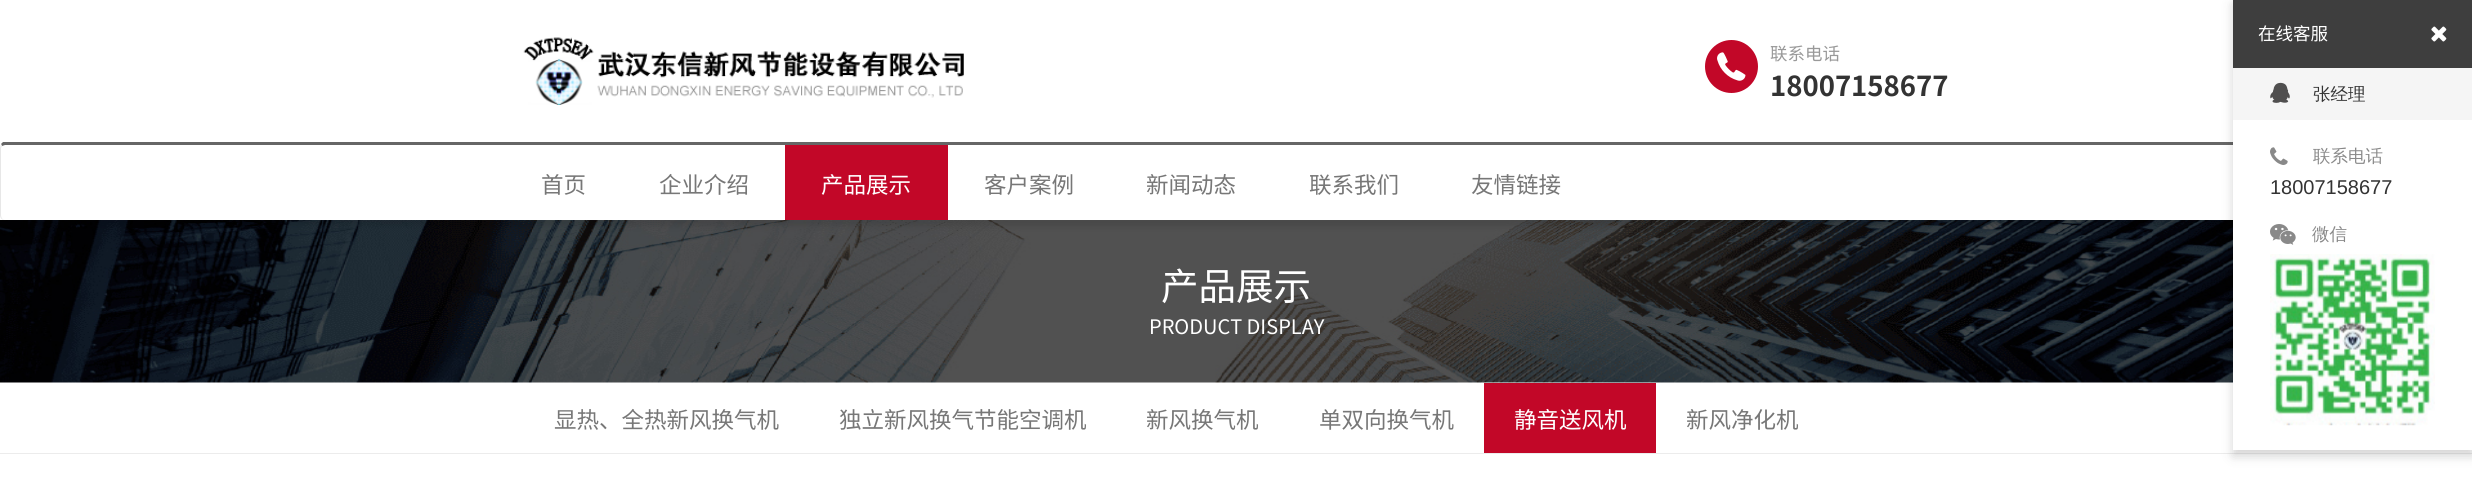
import math
import cairo

surface = cairo.ImageSurface(cairo.Format.RGB24, 2472, 494)
ctx = cairo.Context(surface)
options = cairo.FontOptions()
options.set_hint_metrics(cairo.HintMetrics.OFF)
options.set_hint_style(cairo.HintStyle.NONE)
ctx.set_font_options(options)
ctx.set_miter_limit(4)


def ink(r, g, b):
    ctx.set_source_rgb(r / 255, g / 255, b / 255)


def write(x, y, s, family, size, color, bold=False, italic=False):
    ctx.select_font_face(family, cairo.FontSlant.ITALIC if italic else cairo.FontSlant.NORMAL, cairo.FontWeight.BOLD if bold else cairo.FontWeight.NORMAL)
    ctx.set_font_size(size)
    ink(*color)
    ctx.move_to(x, y)
    ctx.show_text(s)


def block(x, y, w, h, *color):
    ink(*color)
    ctx.rectangle(x, y, w, h)
    ctx.fill()


def round_path(x, y, w, h, r):
    ctx.new_sub_path()
    for i, (u, v) in enumerate([(x + w - r, y + h - r), (x + r, y + h - r), (x + r, y + r), (x + w - r, y + r)]):
        ctx.arc(u, v, r, i * math.pi / 2, (i + 1) * math.pi / 2)
    ctx.close_path()


def blur_box(x, y, w, h, r, blur, alpha):
    ctx.push_group_with_content(cairo.Content.ALPHA)
    ctx.set_operator(cairo.Operator.SOURCE)
    for i in range(15, -16, -2):
        e = blur * i / 6
        if min(w, h) + 2 * e > 0:
            ctx.set_source_rgba(0, 0, 0, alpha * math.erfc((i - 1) / 8.5) / 2)
            round_path(x - e, y - e, w + 2 * e, h + 2 * e, max(0, min(r + e + blur * .6, min(w, h) / 2 + e)))
            ctx.fill()
    ctx.mask(ctx.pop_group())


def paste(path, x, y, w, h):
    ctx.save()
    ctx.set_source_surface(cairo.ImageSurface.create_from_png(path), x, y)
    ctx.rectangle(x, y, w, h)
    ctx.fill()
    ctx.restore()


s1 = dict(family="Noto Sans SC", size=17.5, color=(153, 153, 153))
s2 = dict(family="Noto Sans SC", size=27.5, color=(51, 51, 51), bold=True)
s3 = dict(family="Noto Sans SC", size=17.5, color=(255, 255, 255))
s4 = dict(family="WenQuanYi Zen Hei Medium", size=17.5, color=(51, 51, 51))
s5 = dict(family="WenQuanYi Zen Hei Medium", size=17.5, color=(137, 137, 137))
s6 = dict(family="Liberation Sans", size=20, color=(51, 51, 51))
s7 = dict(family="Noto Sans SC", size=22.5, color=(119, 119, 119))
s8 = dict(family="Noto Sans SC", size=22.5, color=(255, 255, 255))
s9 = dict(family="Noto Sans SC", size=37.5, color=(255, 255, 255))
s10 = dict(family="Noto Sans SC", size=20, color=(255, 255, 255))

ink(255, 255, 255)
ctx.paint()
paste("pic1.png", 523, 37, 441, 68)
ink(194, 7, 40)
ctx.arc(1731.5, 66.5, 26.5, 0, 2 * math.pi)
ctx.fill()
paste("pic2.png", 1717, 52, 29, 29)
write(1770, 60, "联系电话", **s1)
write(1770, 96, "18007158677", **s2)
ink(102, 102, 102)
ctx.new_path()
ctx.move_to(5, 145)
ctx.line_to(2, 146)
ctx.line_to(1, 144)
ctx.line_to(3, 142)
ctx.line_to(2469, 142)
ctx.line_to(2471, 145)
ctx.line_to(2471, 146)
ctx.curve_to(2470, 145, 2469, 145, 2468, 145)
ctx.close_path()
ctx.fill()
paste("pic8.png", 0, 220, 2233, 163)
block(0, 453, 2472, 1, 236, 236, 236)
ink(4, 0, 0)
blur_box(2233, 4, 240, 452, 0, 5.5, 0.17)
block(2233, 120, 239, 330, 255, 255, 255)
block(2233, 0, 239, 68, 62, 62, 62)
write(2258, 40, "在线客服", **s3)
paste("pic3.png", 2431, 26, 16, 16)
block(2233, 68, 239, 52, 245, 245, 245)
paste("pic4.png", 2270, 82, 20, 21)
write(2313, 100, "张经理", **s4)
paste("pic5.png", 2270, 147, 18, 18)
write(2313, 162, "联系电话", **s5)
write(2270, 194, "18007158677", **s6)
paste("pic6.png", 2270, 224, 26, 21)
write(2312, 240, "微信", **s5)
paste("pic7.png", 2270, 254, 165, 172)
ink(231, 231, 231)
ctx.new_path()
ctx.move_to(0, 148)
ctx.line_to(0, 215)
ctx.curve_to(0, 218, 2, 220, 5, 220)
ctx.curve_to(3, 220, 1, 218, 1, 215)
ctx.line_to(1, 148)
ctx.line_to(2, 146)
ctx.line_to(1, 144)
ctx.close_path()
ctx.fill()
write(541, 193, "首页", **s7)
write(659, 193, "企业介绍", **s7)
block(785, 145, 163, 75, 194, 7, 40)
write(821, 193, "产品展示", **s8)
write(984, 193, "客户案例", **s7)
write(1146, 193, "新闻动态", **s7)
write(1309, 193, "联系我们", **s7)
write(1471, 193, "友情链接", **s7)
write(1161, 300, "产品展示", **s9)
write(1149, 334, "PRODUCT DISPLAY", **s10)
write(554, 428, "显热、全热新风换气机", **s7)
write(839, 428, "独立新风换气节能空调机", **s7)
write(1146, 428, "新风换气机", **s7)
write(1319, 428, "单双向换气机", **s7)
block(1484, 383, 172, 70, 194, 7, 40)
write(1514, 428, "静音送风机", **s8)
write(1686, 428, "新风净化机", **s7)
surface.write_to_png("screenshot.png")
